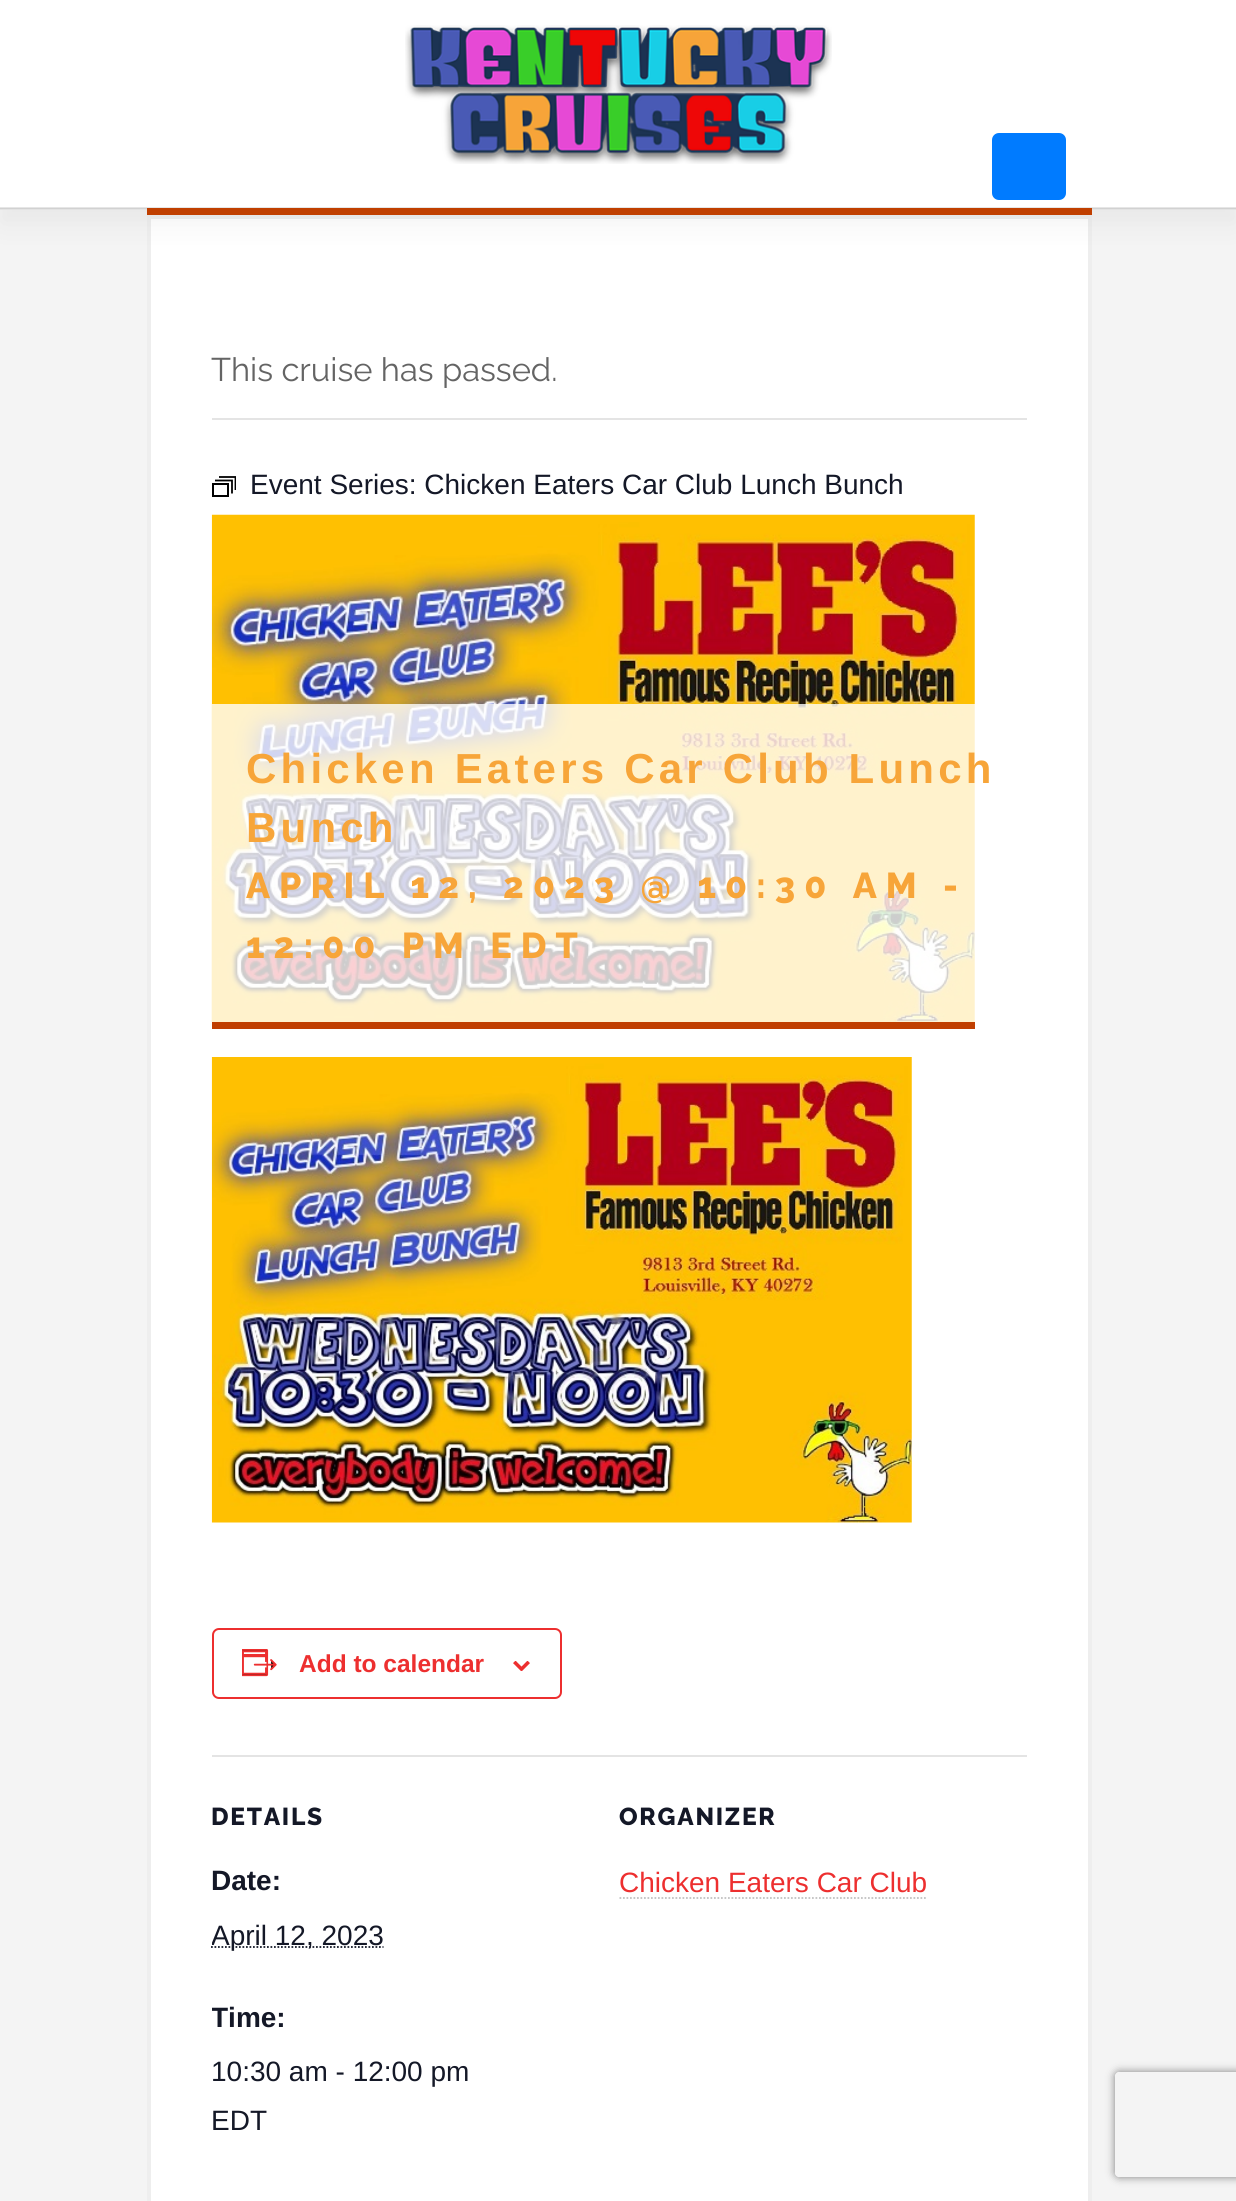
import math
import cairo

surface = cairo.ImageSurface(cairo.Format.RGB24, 1236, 2201)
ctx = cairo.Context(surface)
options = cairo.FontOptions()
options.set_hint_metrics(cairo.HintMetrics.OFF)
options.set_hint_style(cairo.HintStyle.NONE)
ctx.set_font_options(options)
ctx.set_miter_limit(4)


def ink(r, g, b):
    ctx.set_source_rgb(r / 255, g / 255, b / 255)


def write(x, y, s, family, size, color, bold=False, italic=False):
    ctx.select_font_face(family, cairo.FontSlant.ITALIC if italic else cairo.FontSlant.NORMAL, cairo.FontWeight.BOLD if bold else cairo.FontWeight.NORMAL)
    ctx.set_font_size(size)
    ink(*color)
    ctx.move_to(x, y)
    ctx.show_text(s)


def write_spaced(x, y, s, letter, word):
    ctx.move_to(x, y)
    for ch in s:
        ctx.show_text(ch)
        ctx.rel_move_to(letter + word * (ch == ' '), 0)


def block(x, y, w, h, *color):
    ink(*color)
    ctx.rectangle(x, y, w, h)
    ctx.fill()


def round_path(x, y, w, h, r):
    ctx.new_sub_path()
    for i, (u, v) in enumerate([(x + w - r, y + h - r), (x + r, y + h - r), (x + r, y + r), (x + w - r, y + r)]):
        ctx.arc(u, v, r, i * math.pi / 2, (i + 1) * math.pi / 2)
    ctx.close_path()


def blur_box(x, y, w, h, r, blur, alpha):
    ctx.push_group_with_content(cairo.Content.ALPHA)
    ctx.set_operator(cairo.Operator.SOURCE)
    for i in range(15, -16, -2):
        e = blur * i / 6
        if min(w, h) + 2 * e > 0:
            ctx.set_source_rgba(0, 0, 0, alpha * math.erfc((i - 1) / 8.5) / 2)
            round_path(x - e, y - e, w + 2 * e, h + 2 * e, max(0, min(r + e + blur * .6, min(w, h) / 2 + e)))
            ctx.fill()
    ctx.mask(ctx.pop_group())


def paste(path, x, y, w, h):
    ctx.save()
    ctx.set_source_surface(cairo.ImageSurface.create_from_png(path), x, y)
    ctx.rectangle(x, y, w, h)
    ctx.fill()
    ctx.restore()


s1 = dict(family="Raleway", size=32.75, color=(100, 100, 100))
s2 = dict(family="Liberation Sans", size=28, color=(20, 24, 39))
s3 = dict(family="Liberation Sans", size=24.5, color=(237, 47, 47), bold=True)
s4 = dict(family="Liberation Sans", size=28, color=(20, 24, 39), bold=True)
s5 = dict(family="Liberation Sans", size=28, color=(237, 47, 47))

ink(244, 244, 244)
ctx.paint()
ink(255, 255, 255)
ctx.rectangle(149, 217, 941, 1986)
ctx.fill_preserve()
ink(238, 238, 238)
ctx.set_line_width(4)
ctx.stroke()
ink(0, 0, 0)
blur_box(0, 14, 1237, 210, 0, 14, 0.05)
block(0, 0, 1236, 207, 255, 255, 255)
block(0, 209, 1236, 1, 227, 227, 227)
block(0, 207, 1236, 1, 230, 230, 230)
block(0, 208, 1236, 1, 209, 209, 209)
paste("pic1.png", 405, 25, 427, 139)
block(147, 208, 945, 7, 192, 63, 0)
ink(0, 123, 255)
round_path(992, 133, 74, 67, 7)
ctx.fill()
block(212, 418, 815, 2, 228, 228, 228)
write(211, 381, "This cruise has passed.", **s1)
ctx.rectangle(213, 484, 15, 12)
ink(0, 0, 0)
ctx.set_line_width(2)
ctx.stroke()
ctx.new_path()
ctx.move_to(215, 480.5)
ctx.line_to(232, 480.5)
ctx.line_to(232, 493.5)
ctx.set_line_width(1.8)
ctx.stroke()
ctx.save()
ctx.rectangle(212, 476, 24, 21)
ctx.clip()
ctx.new_path()
ctx.move_to(219, 477)
ctx.line_to(235.5, 477)
ctx.line_to(235.5, 490)
ctx.stroke()
ctx.restore()
write(250, 494, "Event Series: Chicken Eaters Car Club Lunch Bunch", **s2)
block(212, 1022, 763, 7, 192, 63, 0)
paste("pic2.png", 211, 514, 764, 508)
ctx.set_source_rgba(1, 1, 1, 0.8)
ctx.rectangle(212, 704, 763, 318)
ctx.fill()
ctx.select_font_face("Liberation Sans", cairo.FontSlant.NORMAL, cairo.FontWeight.BOLD)
ctx.set_font_size(42)
ink(247, 165, 57)
write_spaced(246, 783, "Chicken Eaters Car Club Lunch", 4.2, 0)
write_spaced(246, 842, "Bunch", 4.2, 0)
ctx.select_font_face("Raleway ExtraBold")
ctx.set_font_size(35.9)
write_spaced(246, 898, "APRIL 12, 2023 @ 10:30 AM", 9, 0)
write_spaced(943, 898, "-", 9, 0)
write_spaced(246, 958, "12:00 PM EDT", 9, 0)
paste("pic3.png", 211, 1057, 701, 466)
round_path(213, 1629, 348, 69, 6)
ink(237, 47, 47)
ctx.set_line_width(2)
ctx.stroke()
paste("pic4.png", 242, 1649, 35, 28)
write(299, 1672, "Add to calendar", **s3)
paste("pic5.png", 513, 1661, 17, 10)
block(212, 1755, 815, 2, 228, 228, 228)
ctx.select_font_face("Raleway ExtraBold")
ink(20, 24, 39)
write_spaced(211, 1825, "DETAILS", 1.75, 0)
write(211, 1890, "Date:", **s4)
ctx.new_path()
ctx.move_to(211, 1947)
ctx.line_to(383.5, 1947)
ctx.set_line_width(1.8)
ctx.set_dash([1.75, 1.75])
ctx.stroke()
ctx.save()
ctx.rectangle(212, 515, 815, 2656)
ctx.clip()
write(211, 1945, "April 12, 2023", **s2)
write(211, 2027, "Time:", **s4)
ctx.restore()
write(211, 2081, "10:30 am - 12:00 pm", **s2)
write(211, 2130, "EDT", **s2)
ctx.select_font_face("Raleway ExtraBold")
ctx.set_font_size(24.5)
write_spaced(619, 1825, "ORGANIZER", 1.75, 0)
write(619, 1892, "Chicken Eaters Car Club", **s5)
ctx.new_path()
ctx.move_to(619.5, 1898)
ctx.line_to(927.5, 1898)
ink(193, 193, 193)
ctx.stroke()
ctx.save()
ctx.set_fill_rule(cairo.FillRule.EVEN_ODD)
ctx.new_path()
ctx.move_to(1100, 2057)
ctx.line_to(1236, 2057)
ctx.line_to(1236, 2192)
ctx.line_to(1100, 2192)
ctx.close_path()
ctx.move_to(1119, 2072)
ctx.line_to(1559, 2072)
ctx.curve_to(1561, 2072, 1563, 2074, 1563, 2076)
ctx.line_to(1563, 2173)
ctx.curve_to(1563, 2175, 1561, 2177, 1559, 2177)
ctx.line_to(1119, 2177)
ctx.curve_to(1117, 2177, 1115, 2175, 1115, 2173)
ctx.line_to(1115, 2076)
ctx.curve_to(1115, 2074, 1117, 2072, 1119, 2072)
ctx.close_path()
ctx.clip()
ink(128, 128, 128)
blur_box(1115, 2072, 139, 105, 4, 4.5, 1)
ctx.restore()
surface.write_to_png("screenshot.png")
